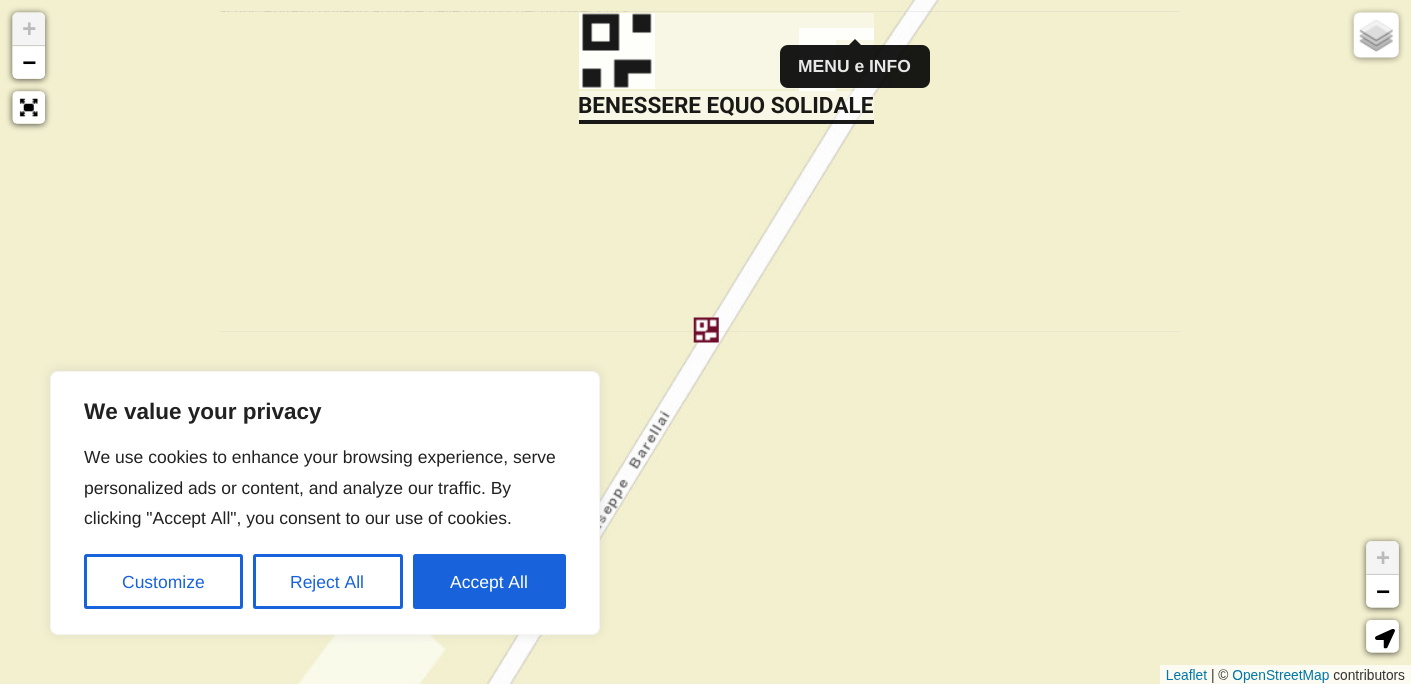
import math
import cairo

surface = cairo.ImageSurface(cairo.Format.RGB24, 1411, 684)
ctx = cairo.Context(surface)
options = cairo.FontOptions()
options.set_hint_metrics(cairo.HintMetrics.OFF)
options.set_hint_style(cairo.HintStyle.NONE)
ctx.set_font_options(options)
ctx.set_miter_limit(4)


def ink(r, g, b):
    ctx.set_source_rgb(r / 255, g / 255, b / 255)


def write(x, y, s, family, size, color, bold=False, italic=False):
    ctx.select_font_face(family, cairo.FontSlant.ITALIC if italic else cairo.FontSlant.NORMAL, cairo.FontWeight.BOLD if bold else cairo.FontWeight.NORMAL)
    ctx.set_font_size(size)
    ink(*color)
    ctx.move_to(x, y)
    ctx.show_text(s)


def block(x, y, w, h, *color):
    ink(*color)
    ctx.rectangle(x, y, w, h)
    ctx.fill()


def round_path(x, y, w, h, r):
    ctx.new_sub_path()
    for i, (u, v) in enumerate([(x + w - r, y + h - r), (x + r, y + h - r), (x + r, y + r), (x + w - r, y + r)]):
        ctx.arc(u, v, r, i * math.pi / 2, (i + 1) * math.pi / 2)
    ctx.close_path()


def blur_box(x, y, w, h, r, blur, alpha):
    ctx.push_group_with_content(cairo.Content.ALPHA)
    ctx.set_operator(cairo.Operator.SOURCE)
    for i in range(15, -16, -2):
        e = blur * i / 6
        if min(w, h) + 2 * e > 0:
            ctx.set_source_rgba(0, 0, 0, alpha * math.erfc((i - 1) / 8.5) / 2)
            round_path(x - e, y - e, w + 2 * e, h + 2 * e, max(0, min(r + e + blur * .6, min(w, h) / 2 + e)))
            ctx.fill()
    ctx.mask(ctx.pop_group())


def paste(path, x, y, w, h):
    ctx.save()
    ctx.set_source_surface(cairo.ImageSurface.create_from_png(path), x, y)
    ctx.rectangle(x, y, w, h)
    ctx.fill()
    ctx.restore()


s1 = dict(family="Liberation Sans", size=17.5, color=(232, 232, 232), bold=True)
s2 = dict(family="Roboto", size=22.5, color=(25, 25, 23), bold=True)
s3 = dict(family="Liberation Sans", size=22.5, color=(33, 33, 33), bold=True)
s4 = dict(family="Liberation Sans", size=17.5, color=(33, 33, 33))
s5 = dict(family="Liberation Sans", size=17.5, color=(24, 99, 220))
s6 = dict(family="Liberation Sans", size=17.5, color=(255, 255, 255))

ink(255, 255, 255)
ctx.paint()
paste("pic1.png", 0, 0, 1411, 684)
ctx.set_source_rgba(1, 1, 1, 0.45)
ctx.rectangle(655, 13, 219, 76)
ctx.fill()
block(579, 13, 76, 76, 254, 254, 250)
paste("pic2.png", 582, 13, 70, 75)
block(799, 28, 37, 63, 254, 254, 250)
block(836, 28, 25, 12, 254, 254, 250)
block(861, 28, 13, 12, 254, 254, 250)
ctx.set_source_rgba(0, 0, 0, 0.9)
round_path(780, 45, 150, 43, 8)
ctx.fill()
ink(24, 24, 21)
ctx.new_path()
ctx.move_to(861, 45)
ctx.line_to(849, 45)
ctx.line_to(855, 39)
ctx.close_path()
ctx.fill()
write(798, 72, "MENU e INFO", **s1)
ctx.set_source_rgba(1, 1, 1, 0.45)
ctx.rectangle(579, 91, 295, 33)
ctx.fill()
ctx.set_source_rgba(0, 0, 0, 0.9)
ctx.rectangle(579, 120, 295, 4)
ctx.fill()
write(578, 113, "BENESSERE EQUO SOLIDALE", **s2)
ink(172, 171, 171)
blur_box(50, 370, 550, 264, 8, 6, 0.3)
ink(255, 255, 255)
round_path(50.5, 371.5, 549, 263, 7.5)
ctx.fill_preserve()
ink(244, 244, 244)
ctx.set_line_width(1)
ctx.stroke()
write(84, 419, "We value your privacy", **s3)
write(84, 463, "We use cookies to enhance your browsing experience, serve", **s4)
write(84, 494, "personalized ads or content, and analyze our traffic. By", **s4)
write(84, 524, "clicking \"Accept All\", you consent to our use of cookies.", **s4)
round_path(85.5, 555.5, 156, 52, 1)
ink(24, 99, 220)
ctx.set_line_width(3)
ctx.stroke()
write(122, 588, "Customize", **s5)
round_path(254.5, 555.5, 147, 52, 1)
ctx.stroke()
write(290, 588, "Reject All", **s5)
round_path(414.5, 555.5, 150, 52, 1)
ctx.fill_preserve()
ctx.stroke()
write(450, 588, "Accept All", **s6)
surface.write_to_png("screenshot.png")
